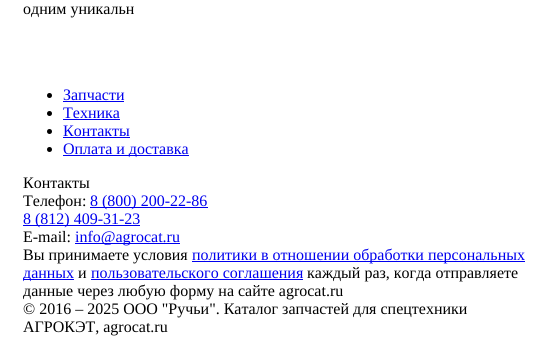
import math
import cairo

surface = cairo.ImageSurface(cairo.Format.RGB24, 540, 344)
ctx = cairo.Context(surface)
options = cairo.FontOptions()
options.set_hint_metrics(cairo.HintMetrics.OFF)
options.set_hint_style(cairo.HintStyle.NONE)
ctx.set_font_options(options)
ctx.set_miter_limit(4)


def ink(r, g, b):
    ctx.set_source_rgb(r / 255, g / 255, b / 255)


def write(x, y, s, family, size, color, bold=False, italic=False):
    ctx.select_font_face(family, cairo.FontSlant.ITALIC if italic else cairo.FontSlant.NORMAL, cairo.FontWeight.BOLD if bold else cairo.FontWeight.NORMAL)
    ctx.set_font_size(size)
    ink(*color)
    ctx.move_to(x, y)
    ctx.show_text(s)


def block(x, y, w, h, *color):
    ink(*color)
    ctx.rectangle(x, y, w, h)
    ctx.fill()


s1 = dict(family="Liberation Serif", size=16, color=(0, 0, 0))
s2 = dict(family="Liberation Serif", size=16, color=(0, 0, 238))

ink(255, 255, 255)
ctx.paint()
write(23, 14, "одним уникальн", **s1)
ctx.new_path()
ctx.arc(49.5, 95.5, 2.5, 0, 2 * math.pi)
ctx.fill()
write(63, 100, "Запчасти", **s2)
block(63, 101, 61, 1, 0, 0, 238)
ink(0, 0, 0)
ctx.new_path()
ctx.arc(49.5, 113.5, 2.5, 0, 2 * math.pi)
ctx.fill()
write(63, 118, "Техника", **s2)
block(63, 119, 57, 1, 0, 0, 238)
ink(0, 0, 0)
ctx.new_path()
ctx.arc(49.5, 131.5, 2.5, 0, 2 * math.pi)
ctx.fill()
write(63, 136, "Контакты", **s2)
block(63, 137, 67, 1, 0, 0, 238)
ink(0, 0, 0)
ctx.new_path()
ctx.arc(49.5, 149.5, 2.5, 0, 2 * math.pi)
ctx.fill()
block(63, 155, 126, 1, 0, 0, 238)
write(63, 154, "Оплата и доставка", **s2)
write(23, 188, "Контакты", **s1)
write(23, 206, "Телефон:", **s1)
block(90, 207, 118, 1, 0, 0, 238)
write(90, 206, "8 (800) 200-22-86", **s2)
block(23, 225, 117, 1, 0, 0, 238)
write(23, 224, "8 (812) 409-31-23", **s2)
write(23, 242, "E-mail:", **s1)
block(75, 243, 105, 1, 0, 0, 238)
write(75, 242, "info@agrocat.ru", **s2)
write(23, 260, "Вы принимаете условия", **s1)
block(192, 261, 333, 1, 0, 0, 238)
write(192, 260, "политики в отношении обработки персональных", **s2)
block(23, 279, 51, 1, 0, 0, 238)
write(23, 278, "данных", **s2)
write(78, 278, "и", **s1)
write(91, 278, "пользовательского соглашения", **s2)
block(91, 279, 212, 1, 0, 0, 238)
write(307, 278, "каждый раз, когда отправляете", **s1)
write(23, 296, "данные через любую форму на сайте agrocat.ru", **s1)
write(23, 314, "© 2016 – 2025 ООО \"Ручьи\". Каталог запчастей для спецтехники", **s1)
write(23, 332, "АГРОКЭТ, agrocat.ru", **s1)
surface.write_to_png("screenshot.png")
